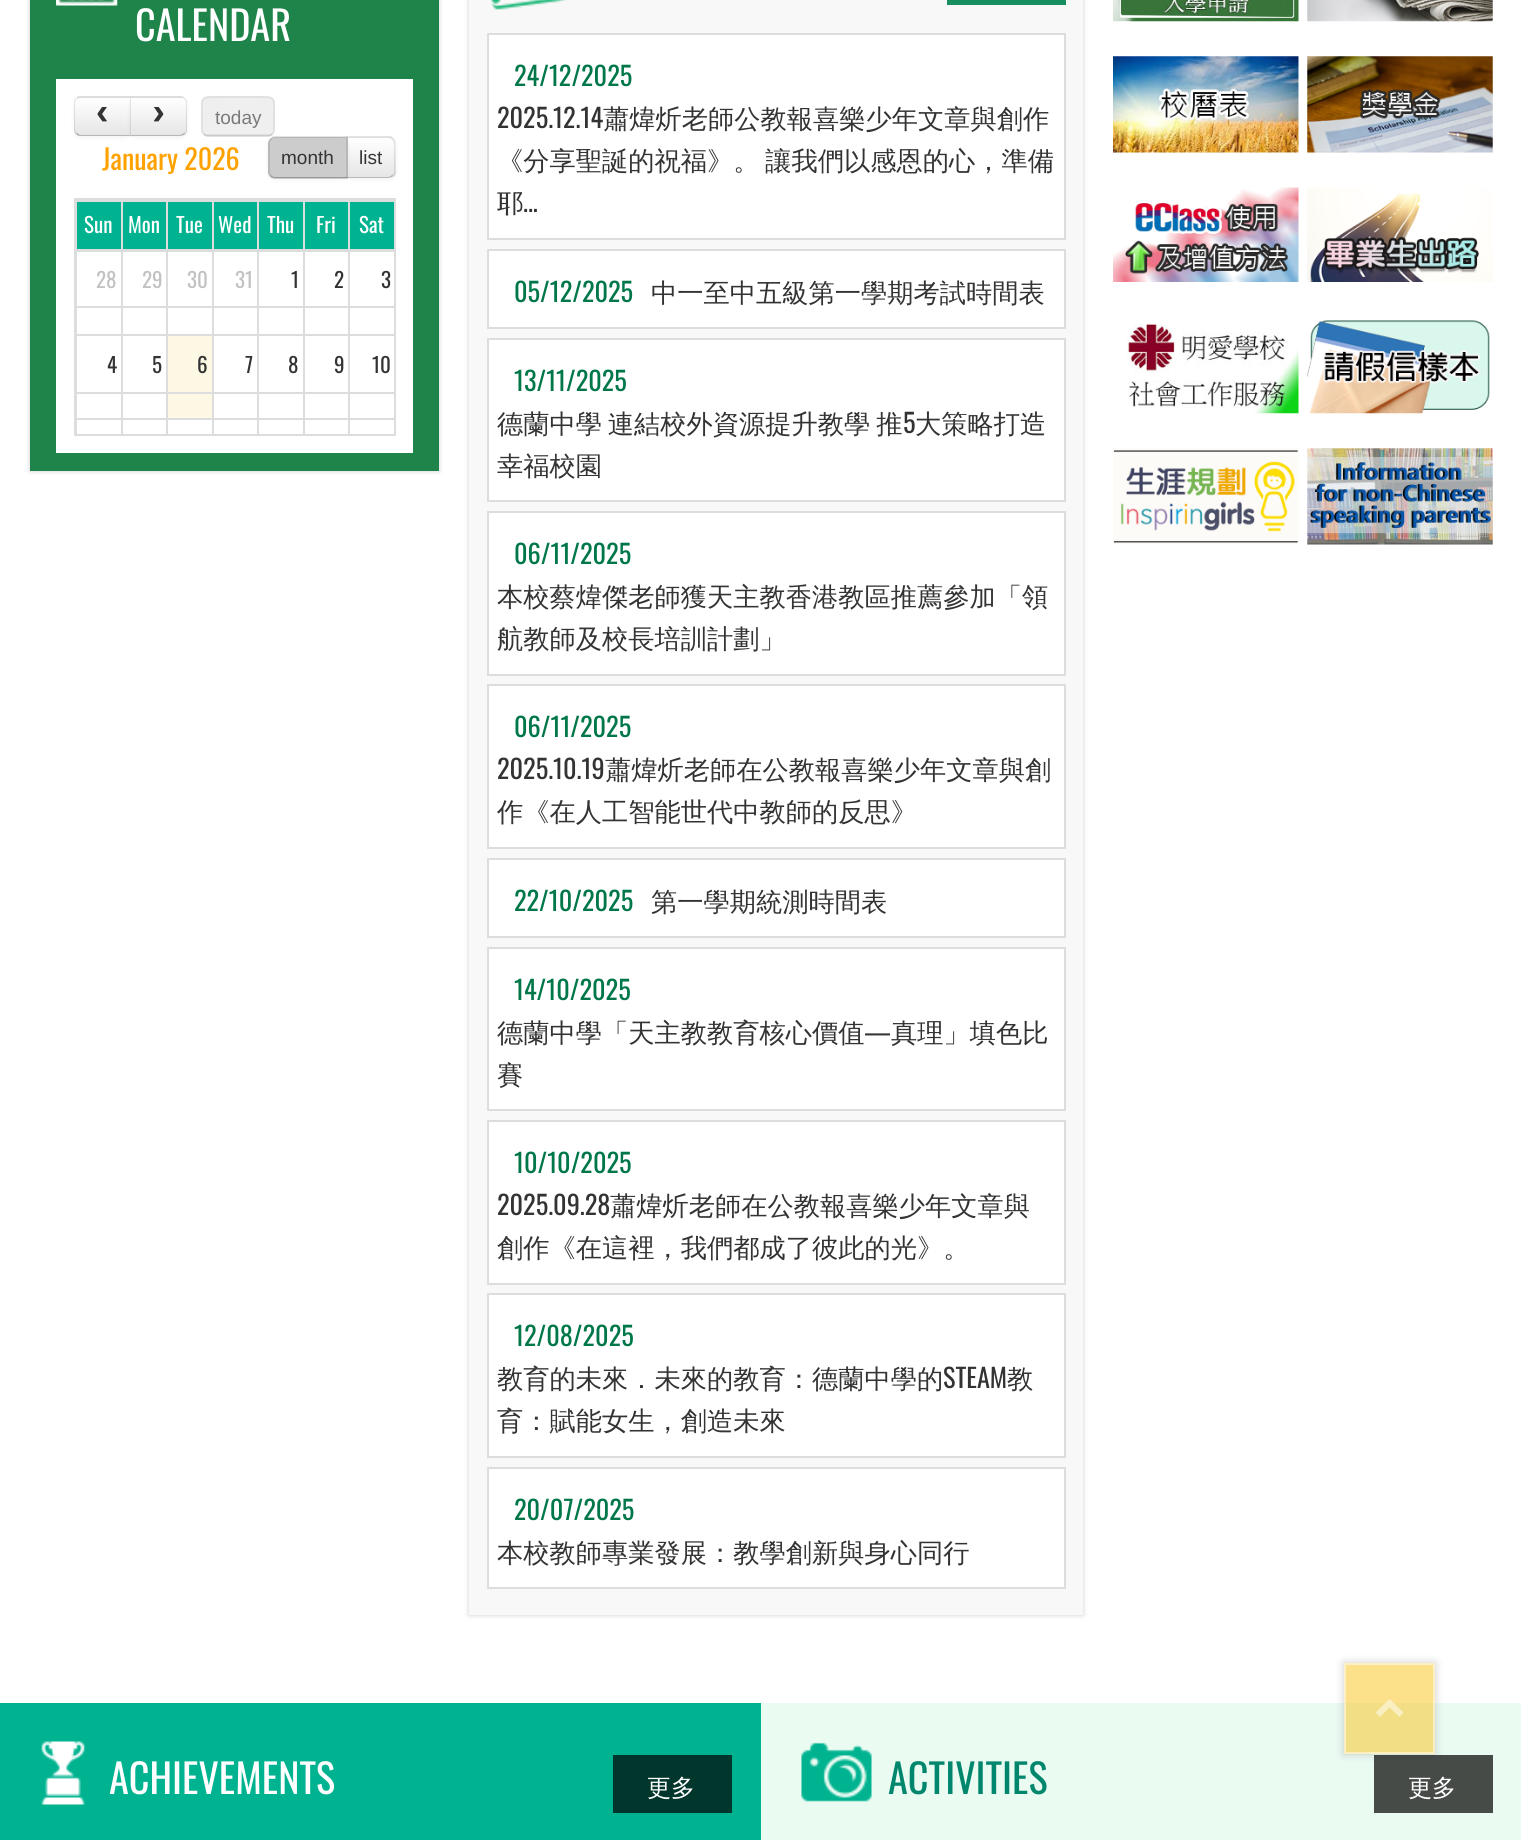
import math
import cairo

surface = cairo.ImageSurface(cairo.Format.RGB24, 1521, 1840)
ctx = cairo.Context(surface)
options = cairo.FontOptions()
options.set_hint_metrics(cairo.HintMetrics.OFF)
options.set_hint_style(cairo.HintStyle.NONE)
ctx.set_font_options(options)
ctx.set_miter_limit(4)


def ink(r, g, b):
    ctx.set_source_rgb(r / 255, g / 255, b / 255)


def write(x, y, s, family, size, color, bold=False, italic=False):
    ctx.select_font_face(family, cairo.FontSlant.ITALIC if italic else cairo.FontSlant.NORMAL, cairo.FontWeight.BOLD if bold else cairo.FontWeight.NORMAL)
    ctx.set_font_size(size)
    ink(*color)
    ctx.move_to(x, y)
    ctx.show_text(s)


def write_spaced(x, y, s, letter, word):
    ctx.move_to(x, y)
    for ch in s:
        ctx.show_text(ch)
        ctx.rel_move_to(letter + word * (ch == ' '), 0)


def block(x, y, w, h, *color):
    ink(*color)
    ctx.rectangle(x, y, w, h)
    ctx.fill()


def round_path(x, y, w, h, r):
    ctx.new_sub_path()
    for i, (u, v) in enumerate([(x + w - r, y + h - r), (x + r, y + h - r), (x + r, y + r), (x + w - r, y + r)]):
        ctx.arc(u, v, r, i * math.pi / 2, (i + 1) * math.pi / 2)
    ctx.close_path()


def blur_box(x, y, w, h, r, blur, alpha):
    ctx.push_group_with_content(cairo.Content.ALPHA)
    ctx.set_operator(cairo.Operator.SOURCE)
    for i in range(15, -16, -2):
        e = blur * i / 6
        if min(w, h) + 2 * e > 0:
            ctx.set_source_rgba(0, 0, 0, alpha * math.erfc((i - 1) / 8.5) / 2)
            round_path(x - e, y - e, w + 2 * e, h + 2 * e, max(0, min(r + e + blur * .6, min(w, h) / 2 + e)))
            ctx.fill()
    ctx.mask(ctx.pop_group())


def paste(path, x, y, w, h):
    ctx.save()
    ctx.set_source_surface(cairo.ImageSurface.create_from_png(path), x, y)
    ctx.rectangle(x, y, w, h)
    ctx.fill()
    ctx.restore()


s1 = dict(family="Oswald", size=40.25, color=(255, 255, 255))
s2 = dict(family="Liberation Mono", size=38, color=(51, 51, 51), bold=True)
s3 = dict(family="Liberation Sans", size=19, color=(122, 122, 122))
s4 = dict(family="Oswald", size=28, color=(255, 162, 0))
s5 = dict(family="Liberation Sans", size=19, color=(51, 51, 51))
s6 = dict(family="Oswald", size=21, color=(255, 255, 255))
s7 = dict(family="Oswald", size=21, color=(194, 194, 194))
s8 = dict(family="Oswald", size=21, color=(51, 51, 51))
s9 = dict(family="Oswald", size=26.25, color=(0, 119, 73))
s10 = dict(family="Oswald", size=26.25, color=(51, 51, 51))
s11 = dict(family="WenQuanYi Zen Hei Medium", size=26.25, color=(51, 51, 51))
s12 = dict(family="WenQuanYi Zen Hei Medium", size=24, color=(255, 255, 255))
s13 = dict(family="Oswald", size=40.25, color=(0, 134, 108))

ink(255, 255, 255)
ctx.paint()
ink(0, 0, 0)
blur_box(30, -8, 409, 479, 0, 2.5, 0.2)
block(30, 0, 409, 471, 30, 132, 73)
paste("pic1.png", 56, 0, 62, 6)
write(135, 41, "CALENDAR", **s1)
block(56, 79, 357, 374, 255, 255, 255)
ink(0, 0, 0)
blur_box(74, 98, 57, 40, 7, 2, 0.05)
ink(245, 245, 245)
ctx.new_path()
ctx.move_to(81, 96)
ctx.line_to(131, 96)
ctx.line_to(131, 137)
ctx.line_to(81, 137)
ctx.curve_to(77, 137, 74, 134, 74, 130)
ctx.line_to(74, 103)
ctx.curve_to(74, 99, 77, 96, 81, 96)
ctx.close_path()
ctx.fill()
ctx.save()
ctx.new_path()
ctx.move_to(81, 96)
ctx.line_to(131, 96)
ctx.line_to(131, 137)
ctx.line_to(81, 137)
ctx.curve_to(77, 137, 74, 134, 74, 130)
ctx.line_to(74, 103)
ctx.curve_to(74, 99, 77, 96, 81, 96)
ctx.close_path()
ctx.clip()
gradient = cairo.LinearGradient(102, 98, 102, 135)
gradient.add_color_stop_rgba(0, 1, 1, 1, 1)
gradient.add_color_stop_rgba(1, 0.902, 0.902, 0.902, 1)
ctx.set_source(gradient)
ctx.rectangle(74, 98, 56, 37)
ctx.fill()
ctx.restore()
ctx.set_source_rgba(0, 0, 0, 0.1)
ctx.new_path()
ctx.move_to(80, 98)
ctx.line_to(77, 99)
ctx.line_to(76, 98)
ctx.line_to(78, 96)
ctx.line_to(131, 96)
ctx.line_to(130, 98)
ctx.close_path()
ctx.fill()
ctx.set_source_rgba(0, 0, 0, 0.25)
ctx.new_path()
ctx.move_to(131, 136)
ctx.line_to(80, 136)
ctx.curve_to(78, 136, 77, 135, 76, 134)
ctx.line_to(77, 133)
ctx.line_to(80, 135)
ctx.line_to(130, 135)
ctx.close_path()
ctx.fill()
ctx.set_source_rgba(0, 0, 0, 0.1)
ctx.new_path()
ctx.move_to(76, 134)
ctx.curve_to(75, 133, 74, 131.5, 74, 130)
ctx.line_to(74, 103)
ctx.curve_to(74, 101, 74.5, 99.5, 75.5, 98.5)
ctx.line_to(76.5, 99.5)
ctx.curve_to(75.5, 100.5, 75, 101.5, 75, 103)
ctx.line_to(75, 130)
ctx.curve_to(75, 131, 76, 132, 77, 133)
ctx.close_path()
ctx.fill()
ctx.save()
ctx.rectangle(91, 107, 23, 19)
ctx.clip()
write(91, 124, "‹", **s2)
ctx.restore()
ink(0, 0, 0)
blur_box(130, 98, 57, 40, 7, 2, 0.05)
ink(245, 245, 245)
ctx.new_path()
ctx.move_to(130, 96)
ctx.line_to(180, 96)
ctx.curve_to(184, 96, 187, 99, 187, 103)
ctx.line_to(187, 130)
ctx.curve_to(187, 134, 184, 137, 180, 137)
ctx.line_to(130, 137)
ctx.close_path()
ctx.fill()
ctx.save()
ctx.new_path()
ctx.move_to(130, 96)
ctx.line_to(180, 96)
ctx.curve_to(184, 96, 187, 99, 187, 103)
ctx.line_to(187, 130)
ctx.curve_to(187, 134, 184, 137, 180, 137)
ctx.line_to(130, 137)
ctx.close_path()
ctx.clip()
gradient = cairo.LinearGradient(158, 98, 158, 135)
gradient.add_color_stop_rgba(0, 1, 1, 1, 1)
gradient.add_color_stop_rgba(1, 0.902, 0.902, 0.902, 1)
ctx.set_source(gradient)
ctx.rectangle(130, 98, 57, 37)
ctx.fill()
ctx.restore()
ctx.set_source_rgba(0, 0, 0, 0.1)
ctx.new_path()
ctx.move_to(130, 97)
ctx.line_to(130, 96)
ctx.line_to(182, 96)
ctx.line_to(185, 98)
ctx.line_to(184, 99)
ctx.curve_to(183, 98, 182, 98, 180, 98)
ctx.line_to(131, 98)
ctx.close_path()
ctx.fill()
ctx.new_path()
ctx.move_to(185, 98.5)
ctx.curve_to(186.5, 99.5, 187, 101, 187, 103)
ctx.line_to(187, 130)
ctx.curve_to(187, 131.5, 186, 133, 185, 134)
ctx.line_to(184, 133.5)
ctx.curve_to(185, 132.5, 186, 131, 186, 130)
ctx.line_to(186, 103)
ctx.curve_to(186, 101.5, 185, 100, 184, 99.5)
ctx.close_path()
ctx.fill()
ctx.set_source_rgba(0, 0, 0, 0.25)
ctx.new_path()
ctx.move_to(185, 134)
ctx.curve_to(184, 135, 182, 136, 180, 136)
ctx.line_to(130, 136)
ctx.line_to(131, 135)
ctx.line_to(180, 135)
ctx.curve_to(181, 135, 183, 134, 184, 133)
ctx.close_path()
ctx.fill()
ctx.set_source_rgba(0, 0, 0, 0.1)
ctx.new_path()
ctx.move_to(131, 98)
ctx.line_to(130, 97)
ctx.line_to(130, 136)
ctx.line_to(131, 135)
ctx.close_path()
ctx.fill()
ctx.save()
ctx.rectangle(147, 107, 23, 19)
ctx.clip()
write(147, 124, "›", **s2)
ctx.restore()
ink(239, 239, 239)
round_path(201, 96, 74, 41, 7)
ctx.fill()
ctx.new_path()
ctx.move_to(272, 134)
ctx.curve_to(271, 135, 269.5, 135.5, 268, 135.5)
ctx.line_to(208, 135.5)
ctx.curve_to(206.5, 135.5, 205, 135, 204, 134)
ink(202, 202, 202)
ctx.set_line_width(1.8)
ctx.stroke()
ctx.new_path()
ctx.move_to(204, 134)
ctx.curve_to(201.5, 131.5, 202, 128, 202, 125)
ctx.line_to(202, 116.5)
ctx.curve_to(202, 97.5, 199.5, 97, 218, 97)
ctx.line_to(258, 97)
ctx.curve_to(276.5, 97, 274, 97.5, 274, 116.5)
ctx.line_to(274, 125)
ctx.curve_to(274, 128, 274.5, 131.5, 272, 134)
ctx.set_source_rgba(0.349, 0.349, 0.349, 0.1)
ctx.stroke()
write(215, 124, "today", **s3)
write(102, 170, "January 2026", **s4)
ink(0, 0, 0)
blur_box(347, 138, 49, 42, 7, 2, 0.05)
ink(245, 245, 245)
ctx.new_path()
ctx.move_to(347, 137)
ctx.line_to(389, 137)
ctx.curve_to(393, 137, 396, 140, 396, 144)
ctx.line_to(396, 172)
ctx.curve_to(396, 176, 393, 179, 389, 179)
ctx.line_to(347, 179)
ctx.close_path()
ctx.fill()
ctx.save()
ctx.new_path()
ctx.move_to(347, 137)
ctx.line_to(389, 137)
ctx.curve_to(393, 137, 396, 140, 396, 144)
ctx.line_to(396, 172)
ctx.curve_to(396, 176, 393, 179, 389, 179)
ctx.line_to(347, 179)
ctx.close_path()
ctx.clip()
gradient = cairo.LinearGradient(371, 138, 371, 177)
gradient.add_color_stop_rgba(0, 1, 1, 1, 1)
gradient.add_color_stop_rgba(1, 0.902, 0.902, 0.902, 1)
ctx.set_source(gradient)
ctx.rectangle(348, 138, 48, 39)
ctx.fill()
ctx.restore()
ctx.set_source_rgba(0, 0, 0, 0.1)
ctx.new_path()
ctx.move_to(348, 138)
ctx.line_to(346, 136)
ctx.line_to(391, 136)
ctx.line_to(394, 138)
ctx.line_to(392, 140)
ctx.curve_to(391, 139, 390, 138, 388, 138)
ctx.close_path()
ctx.fill()
ctx.new_path()
ctx.move_to(395.5, 174)
ctx.line_to(393.5, 176.5)
ctx.line_to(392, 175)
ctx.curve_to(393.5, 174, 394, 173, 394, 172)
ctx.line_to(394, 144)
ctx.curve_to(394, 142.5, 393, 141, 392, 140)
ctx.line_to(393.5, 138.5)
ctx.line_to(395.5, 141.5)
ctx.close_path()
ctx.fill()
ctx.set_source_rgba(0, 0, 0, 0.25)
ctx.new_path()
ctx.move_to(393, 176)
ctx.curve_to(392, 177, 390, 178, 388, 178)
ctx.line_to(347, 178)
ctx.line_to(348, 177)
ctx.line_to(388, 177)
ctx.curve_to(390, 177, 391, 176, 392, 175)
ctx.close_path()
ctx.fill()
ctx.set_source_rgba(0, 0, 0, 0.1)
ctx.new_path()
ctx.move_to(348, 138)
ctx.line_to(348, 177)
ctx.line_to(346, 178)
ctx.line_to(346, 136)
ctx.close_path()
ctx.fill()
ink(0, 0, 0)
blur_box(268, 138, 80, 42, 7, 2, 0.05)
ink(204, 204, 204)
ctx.new_path()
ctx.move_to(275, 137)
ctx.line_to(348, 137)
ctx.line_to(348, 179)
ctx.line_to(275, 179)
ctx.curve_to(271, 179, 268, 176, 268, 172)
ctx.line_to(268, 144)
ctx.curve_to(268, 140, 271, 137, 275, 137)
ctx.close_path()
ctx.fill()
ctx.set_source_rgba(0, 0, 0, 0.1)
ctx.new_path()
ctx.move_to(275, 138)
ctx.curve_to(273, 138, 272, 139, 271, 140)
ctx.line_to(270, 139)
ctx.line_to(273, 136)
ctx.line_to(348, 136)
ctx.line_to(346, 139)
ctx.line_to(346, 138)
ctx.close_path()
ctx.fill()
ctx.new_path()
ctx.move_to(348, 137)
ctx.line_to(348, 178)
ctx.line_to(346, 176)
ctx.line_to(346, 139)
ctx.close_path()
ctx.fill()
ctx.set_source_rgba(0, 0, 0, 0.25)
ctx.new_path()
ctx.move_to(348, 178)
ctx.line_to(275, 178)
ctx.curve_to(273, 178, 271, 177, 270, 176)
ctx.line_to(271, 175)
ctx.curve_to(272, 176, 273, 177, 275, 177)
ctx.line_to(346, 177)
ctx.line_to(346, 176)
ctx.close_path()
ctx.fill()
ctx.set_source_rgba(0, 0, 0, 0.1)
ctx.new_path()
ctx.move_to(270, 176)
ctx.curve_to(269, 175, 268, 173.5, 268, 172)
ctx.line_to(268, 144)
ctx.curve_to(268, 142, 268.5, 140, 270, 138.5)
ctx.line_to(271.5, 140)
ctx.curve_to(270.5, 141, 270, 142.5, 270, 144)
ctx.line_to(270, 172)
ctx.curve_to(270, 173, 270.5, 174, 271, 175)
ctx.close_path()
ctx.fill()
write(281, 164, "month", **s5)
write(359, 164, "list", **s5)
block(74, 198, 322, 2, 221, 221, 221)
block(74, 249, 322, 1, 221, 221, 221)
block(394, 249, 2, 187, 221, 221, 221)
block(394, 198, 2, 52, 221, 221, 221)
block(74, 434, 322, 2, 221, 221, 221)
block(74, 249, 2, 187, 221, 221, 221)
block(74, 198, 2, 52, 221, 221, 221)
block(77, 202, 317, 47, 0, 179, 144)
block(348, 200, 48, 2, 221, 221, 221)
block(348, 200, 2, 50, 221, 221, 221)
block(303, 200, 47, 2, 221, 221, 221)
block(303, 200, 2, 50, 221, 221, 221)
block(257, 200, 48, 2, 221, 221, 221)
block(257, 200, 2, 50, 221, 221, 221)
block(212, 200, 47, 2, 221, 221, 221)
block(212, 200, 2, 50, 221, 221, 221)
block(166, 200, 48, 2, 221, 221, 221)
block(166, 200, 2, 50, 221, 221, 221)
block(121, 200, 47, 2, 221, 221, 221)
block(121, 200, 2, 50, 221, 221, 221)
block(75, 200, 48, 2, 221, 221, 221)
block(76, 200, 1, 50, 221, 221, 221)
write(84, 233, "Sun", **s6)
write(128, 233, "Mon", **s6)
write(176, 233, "Tue", **s6)
write(218, 233, "Wed", **s6)
write(267, 233, "Thu", **s6)
write(316, 233, "Fri", **s6)
write(359, 233, "Sat", **s6)
block(75, 250, 319, 2, 221, 221, 221)
block(348, 334, 46, 2, 221, 221, 221)
block(348, 250, 2, 86, 221, 221, 221)
block(303, 334, 47, 2, 221, 221, 221)
block(303, 250, 2, 86, 221, 221, 221)
block(257, 334, 48, 2, 221, 221, 221)
block(257, 250, 2, 86, 221, 221, 221)
block(212, 334, 47, 2, 221, 221, 221)
block(212, 250, 2, 86, 221, 221, 221)
block(166, 334, 48, 2, 221, 221, 221)
block(166, 250, 2, 86, 221, 221, 221)
block(121, 334, 47, 2, 221, 221, 221)
block(121, 250, 2, 86, 221, 221, 221)
block(75, 334, 48, 2, 221, 221, 221)
block(76, 250, 1, 86, 221, 221, 221)
write(96, 288, "28", **s7)
write(142, 288, "29", **s7)
write(187, 288, "30", **s7)
write(235, 288, "31", **s7)
write(291, 288, "1", **s8)
write(334, 288, "2", **s8)
write(381, 288, "3", **s8)
block(75, 306, 319, 2, 221, 221, 221)
block(348, 418, 46, 2, 221, 221, 221)
block(348, 334, 2, 86, 221, 221, 221)
block(303, 418, 47, 2, 221, 221, 221)
block(303, 334, 2, 86, 221, 221, 221)
block(257, 418, 48, 2, 221, 221, 221)
block(257, 334, 2, 86, 221, 221, 221)
block(212, 418, 47, 2, 221, 221, 221)
block(212, 334, 2, 86, 221, 221, 221)
block(166, 418, 48, 2, 221, 221, 221)
block(166, 334, 2, 86, 221, 221, 221)
block(121, 418, 47, 2, 221, 221, 221)
block(121, 334, 2, 86, 221, 221, 221)
block(75, 418, 48, 2, 221, 221, 221)
block(76, 334, 1, 100, 221, 221, 221)
block(168, 336, 44, 82, 252, 248, 227)
write(107, 373, "4", **s8)
write(152, 373, "5", **s8)
write(197, 373, "6", **s8)
write(245, 373, "7", **s8)
write(288, 373, "8", **s8)
write(334, 373, "9", **s8)
write(372, 373, "10", **s8)
block(75, 392, 319, 2, 221, 221, 221)
block(121, 418, 2, 16, 221, 221, 221)
block(166, 418, 2, 16, 221, 221, 221)
block(212, 418, 2, 16, 221, 221, 221)
block(257, 418, 2, 16, 221, 221, 221)
block(303, 418, 2, 16, 221, 221, 221)
block(348, 418, 2, 16, 221, 221, 221)
ink(0, 0, 0)
blur_box(469, -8, 614, 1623, 0, 2.5, 0.2)
block(469, 0, 614, 1615, 248, 248, 248)
paste("pic2.png", 491, 0, 75, 10)
block(947, 0, 119, 5, 23, 142, 94)
ink(255, 255, 255)
ctx.rectangle(488, 34, 577, 205)
ctx.fill_preserve()
ink(221, 221, 221)
ctx.set_line_width(2)
ctx.stroke()
write(514, 86, "24/12/2025", **s9)
write(497, 128, "2025.12.14", **s10)
write(603, 128, "蕭煒炘老師公教報喜樂少年文章與創作", **s11)
write_spaced(497, 170, "《分享聖誕的祝福》。 讓我們以感恩的心，準備", 0, -2)
write(497, 212, "耶", **s11)
write(523, 212, "...", **s10)
ink(255, 255, 255)
ctx.rectangle(488, 250, 577, 78)
ctx.fill_preserve()
ink(221, 221, 221)
ctx.stroke()
write(514, 302, "05/12/2025", **s9)
write(651, 302, "中一至中五級第一學期考試時間表", **s11)
ink(255, 255, 255)
ctx.rectangle(488, 339, 577, 162)
ctx.fill_preserve()
ink(221, 221, 221)
ctx.stroke()
write(514, 391, "13/11/2025", **s9)
ctx.select_font_face("WenQuanYi Zen Hei Medium")
ink(51, 51, 51)
write_spaced(497, 433, "德蘭中學 連結校外資源提升教學 推", 0, -2)
write(903, 433, "5", **s10)
write(915, 433, "大策略打造", **s11)
write(497, 475, "幸福校園", **s11)
ink(255, 255, 255)
ctx.rectangle(488, 512, 577, 163)
ctx.fill_preserve()
ink(221, 221, 221)
ctx.stroke()
write(514, 564, "06/11/2025", **s9)
write(497, 606, "本校蔡煒傑老師獲天主教香港教區推薦參加「領", **s11)
write(497, 648, "航教師及校長培訓計劃」", **s11)
ink(255, 255, 255)
ctx.rectangle(488, 685, 577, 163)
ctx.fill_preserve()
ink(221, 221, 221)
ctx.stroke()
write(514, 737, "06/11/2025", **s9)
write(497, 779, "2025.10.19", **s10)
write(605, 779, "蕭煒炘老師在公教報喜樂少年文章與創", **s11)
write(497, 821, "作《在人工智能世代中教師的反思》", **s11)
ink(255, 255, 255)
ctx.rectangle(488, 859, 577, 78)
ctx.fill_preserve()
ink(221, 221, 221)
ctx.stroke()
write(514, 911, "22/10/2025", **s9)
write(651, 911, "第一學期統測時間表", **s11)
ink(255, 255, 255)
ctx.rectangle(488, 948, 577, 162)
ctx.fill_preserve()
ink(221, 221, 221)
ctx.stroke()
write(514, 1000, "14/10/2025", **s9)
write(497, 1042, "德蘭中學「天主教教育核心價值", **s11)
write(864, 1042, "—", **s10)
write(891, 1042, "真理」填色比", **s11)
write(497, 1084, "賽", **s11)
ink(255, 255, 255)
ctx.rectangle(488, 1121, 577, 163)
ctx.fill_preserve()
ink(221, 221, 221)
ctx.stroke()
write(514, 1173, "10/10/2025", **s9)
write(497, 1215, "2025.09.28", **s10)
write(610, 1215, "蕭煒炘老師在公教報喜樂少年文章與", **s11)
write(497, 1257, "創作《在這裡，我們都成了彼此的光》。", **s11)
ink(255, 255, 255)
ctx.rectangle(488, 1294, 577, 163)
ctx.fill_preserve()
ink(221, 221, 221)
ctx.stroke()
write(514, 1346, "12/08/2025", **s9)
write(497, 1388, "教育的未來．未來的教育：德蘭中學的", **s11)
write(943, 1388, "STEAM", **s10)
write(1007, 1388, "教", **s11)
write(497, 1430, "育：賦能女生，創造未來", **s11)
ink(255, 255, 255)
ctx.rectangle(488, 1468, 577, 120)
ctx.fill_preserve()
ink(221, 221, 221)
ctx.stroke()
write(514, 1520, "20/07/2025", **s9)
write(497, 1562, "本校教師專業發展：教學創新與身心同行", **s11)
paste("pic3.png", 1113, 0, 186, 22)
paste("pic4.png", 1307, 0, 186, 22)
paste("pic5.png", 1113, 56, 186, 97)
paste("pic6.png", 1307, 56, 186, 97)
paste("pic7.png", 1113, 187, 186, 95)
paste("pic8.png", 1307, 187, 186, 95)
paste("pic9.png", 1127, 324, 172, 90)
paste("pic10.png", 1307, 320, 183, 94)
paste("pic11.png", 1113, 448, 186, 97)
paste("pic12.png", 1307, 448, 186, 97)
block(761, 1703, 760, 137, 234, 251, 242)
block(0, 1703, 761, 137, 0, 179, 144)
paste("pic13.png", 41, 1741, 44, 64)
write(109, 1794, "ACHIEVEMENTS", **s1)
block(613, 1755, 119, 58, 0, 54, 43)
write(647, 1796, "更多", **s12)
paste("pic14.png", 801, 1742, 71, 60)
write(888, 1794, "ACTIVITIES", **s13)
ctx.save()
ctx.set_fill_rule(cairo.FillRule.EVEN_ODD)
ctx.new_path()
ctx.move_to(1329, 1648)
ctx.line_to(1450, 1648)
ctx.line_to(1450, 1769)
ctx.line_to(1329, 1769)
ctx.close_path()
ctx.move_to(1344, 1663)
ctx.line_to(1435, 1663)
ctx.line_to(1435, 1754)
ctx.line_to(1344, 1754)
ctx.close_path()
ctx.clip()
ink(153, 153, 153)
blur_box(1344, 1663, 91, 91, 0, 4.5, 0.5)
ctx.restore()
ctx.set_source_rgba(0, 0, 0, 0.7)
ctx.rectangle(1374, 1755, 119, 58)
ctx.fill()
write(1408, 1796, "更多", **s12)
ctx.set_source_rgba(0.98, 0.761, 0.09, 0.5)
ctx.rectangle(1344, 1663, 91, 91)
ctx.fill()
ctx.set_source_rgba(1, 1, 1, 0.5)
ctx.new_path()
ctx.move_to(1389.5, 1699)
ctx.line_to(1403.5, 1712.5)
ctx.line_to(1399.5, 1717)
ctx.line_to(1389.5, 1707.5)
ctx.line_to(1380, 1717)
ctx.line_to(1375.5, 1712.5)
ctx.close_path()
ctx.fill()
ctx.rectangle(1345, 1664, 89, 89)
ctx.stroke()
surface.write_to_png("screenshot.png")
